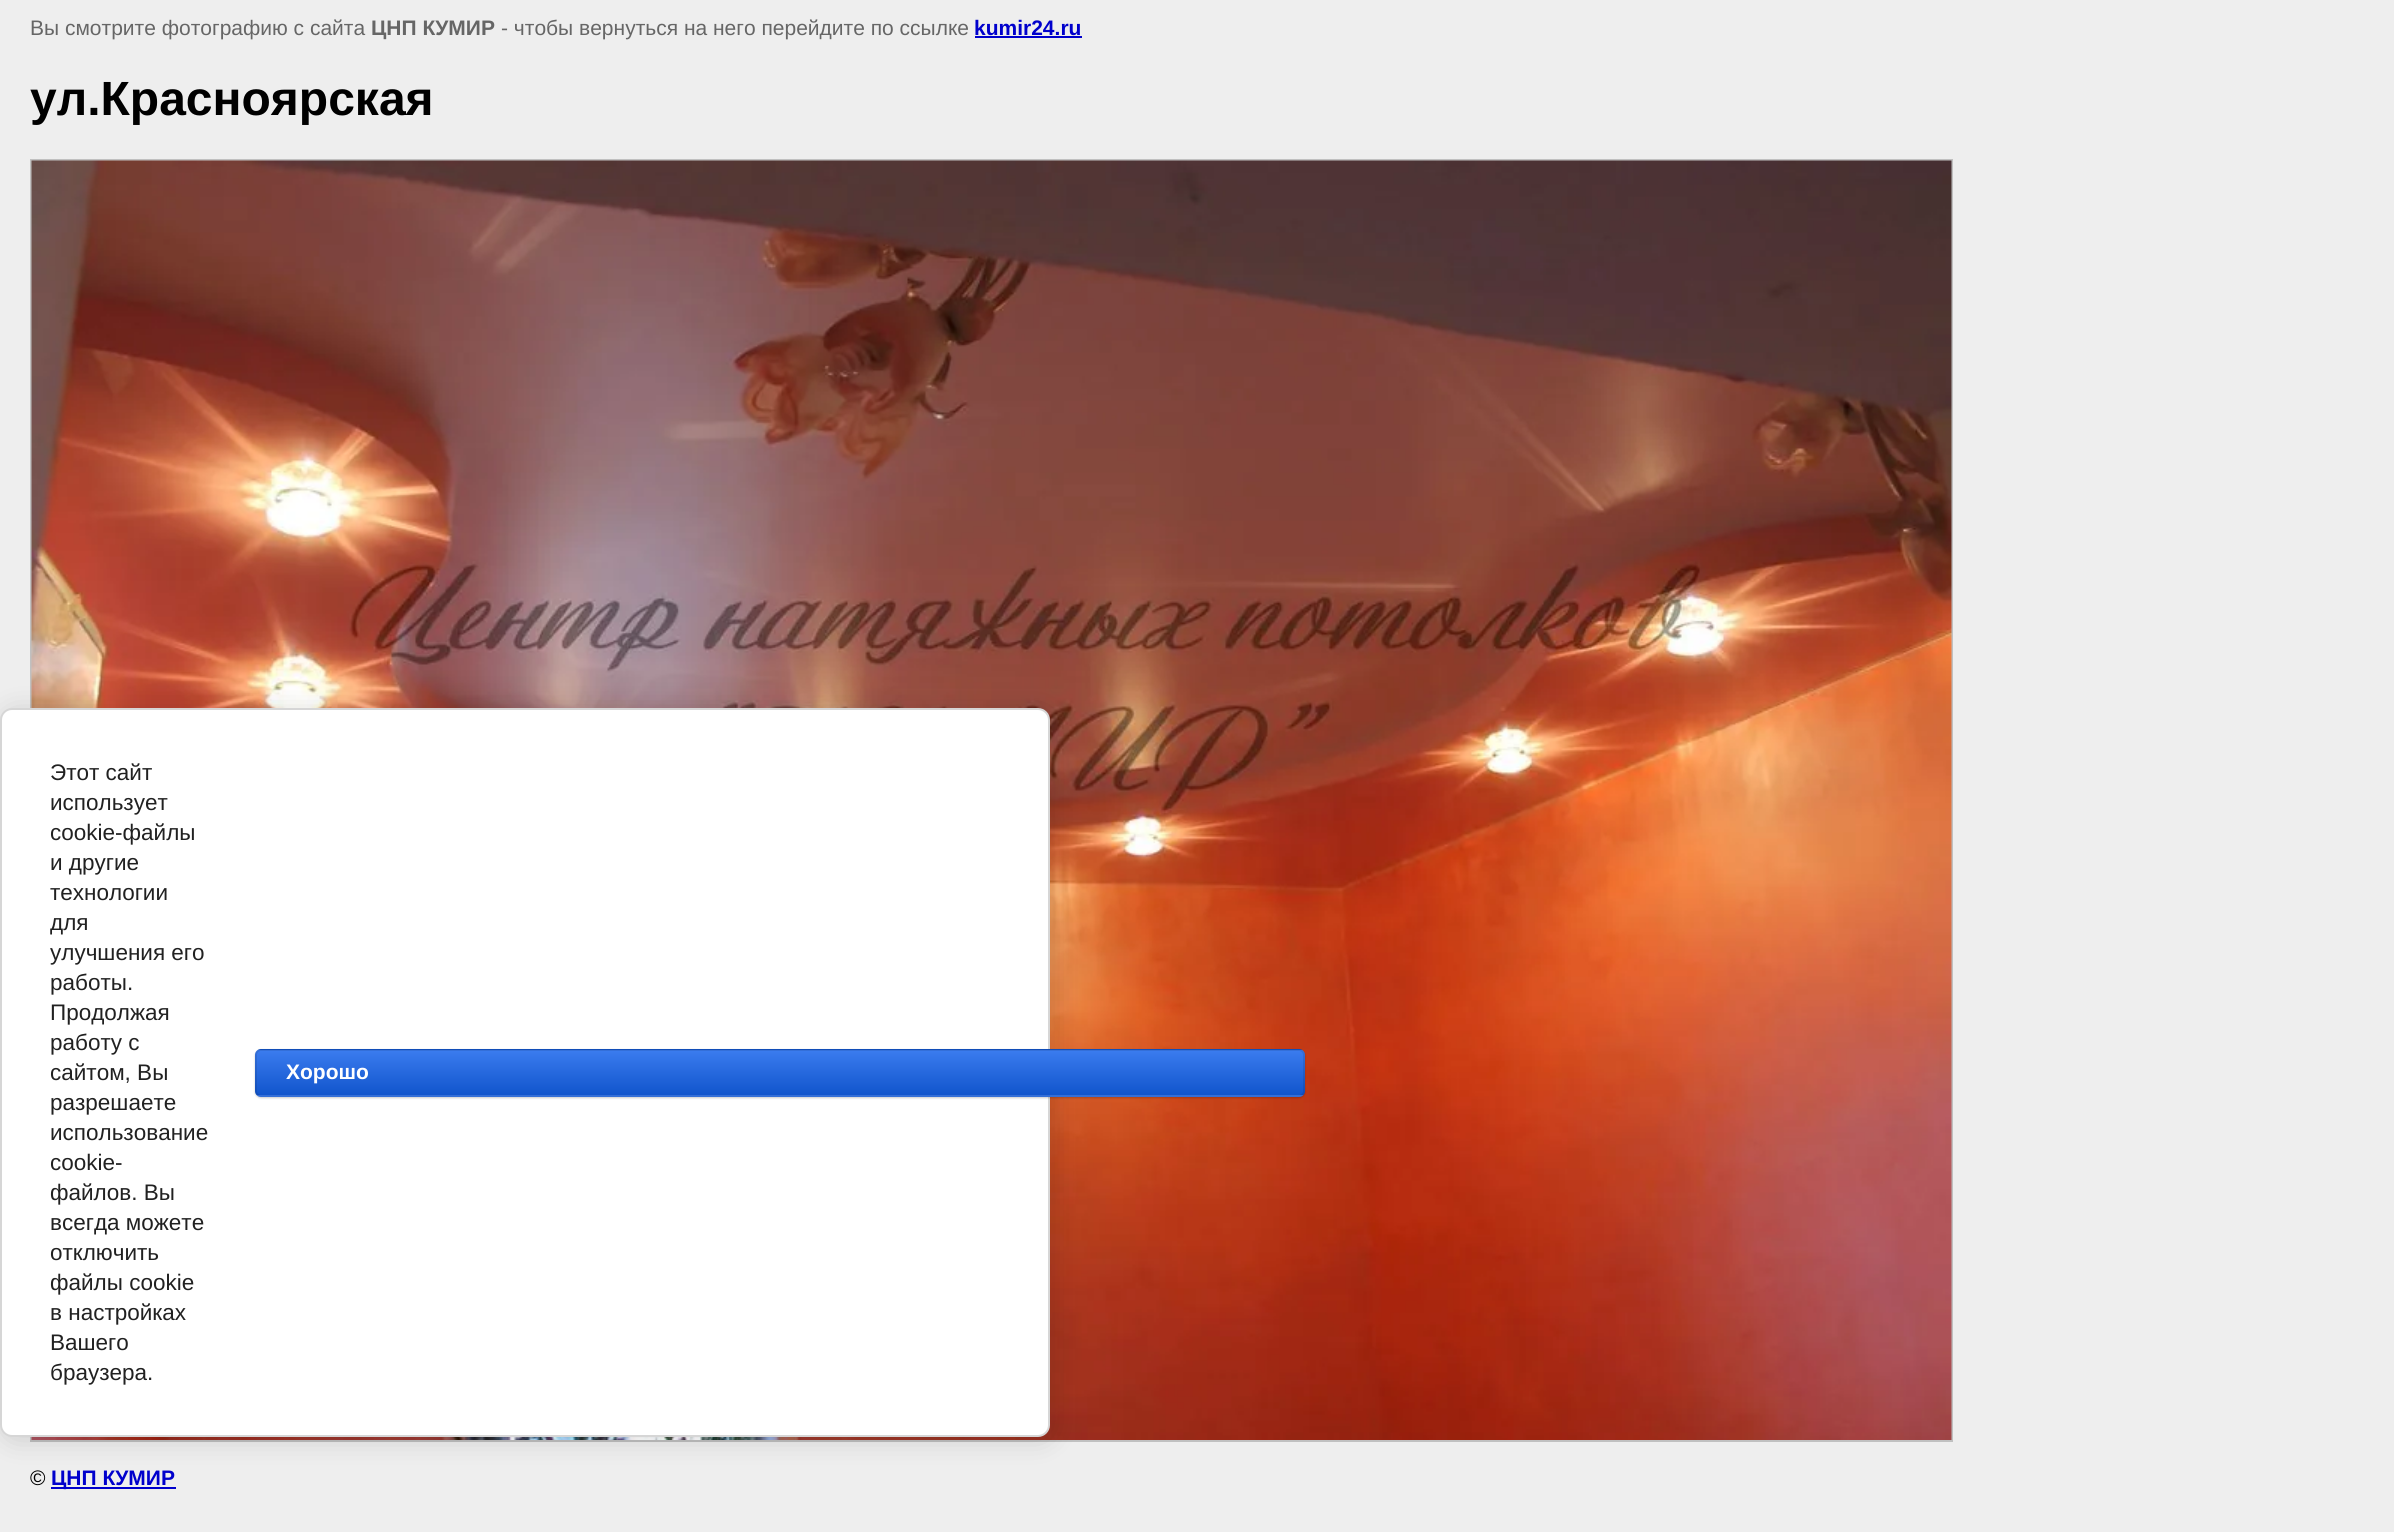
import math
import cairo

surface = cairo.ImageSurface(cairo.Format.RGB24, 2394, 1532)
ctx = cairo.Context(surface)
options = cairo.FontOptions()
options.set_hint_metrics(cairo.HintMetrics.OFF)
options.set_hint_style(cairo.HintStyle.NONE)
ctx.set_font_options(options)
ctx.set_miter_limit(4)


def ink(r, g, b):
    ctx.set_source_rgb(r / 255, g / 255, b / 255)


def write(x, y, s, family, size, color, bold=False, italic=False):
    ctx.select_font_face(family, cairo.FontSlant.ITALIC if italic else cairo.FontSlant.NORMAL, cairo.FontWeight.BOLD if bold else cairo.FontWeight.NORMAL)
    ctx.set_font_size(size)
    ink(*color)
    ctx.move_to(x, y)
    ctx.show_text(s)


def block(x, y, w, h, *color):
    ink(*color)
    ctx.rectangle(x, y, w, h)
    ctx.fill()


def round_path(x, y, w, h, r):
    ctx.new_sub_path()
    for i, (u, v) in enumerate([(x + w - r, y + h - r), (x + r, y + h - r), (x + r, y + r), (x + w - r, y + r)]):
        ctx.arc(u, v, r, i * math.pi / 2, (i + 1) * math.pi / 2)
    ctx.close_path()


def blur_box(x, y, w, h, r, blur, alpha):
    ctx.push_group_with_content(cairo.Content.ALPHA)
    ctx.set_operator(cairo.Operator.SOURCE)
    for i in range(15, -16, -2):
        e = blur * i / 6
        if min(w, h) + 2 * e > 0:
            ctx.set_source_rgba(0, 0, 0, alpha * math.erfc((i - 1) / 8.5) / 2)
            round_path(x - e, y - e, w + 2 * e, h + 2 * e, max(0, min(r + e + blur * .6, min(w, h) / 2 + e)))
            ctx.fill()
    ctx.mask(ctx.pop_group())


def paste(path, x, y, w, h):
    ctx.save()
    ctx.set_source_surface(cairo.ImageSurface.create_from_png(path), x, y)
    ctx.rectangle(x, y, w, h)
    ctx.fill()
    ctx.restore()


s1 = dict(family="Liberation Sans", size=21, color=(102, 102, 102))
s2 = dict(family="Liberation Sans", size=21, color=(102, 102, 102), bold=True)
s3 = dict(family="Liberation Sans", size=21, color=(0, 0, 204), bold=True)
s4 = dict(family="Liberation Sans", size=48, color=(0, 0, 0), bold=True)
s5 = dict(family="Liberation Sans", size=22.5, color=(33, 33, 33))
s6 = dict(family="Liberation Sans", size=21, color=(255, 255, 255), bold=True)
s7 = dict(family="Liberation Sans", size=21, color=(0, 0, 0))

ink(238, 238, 238)
ctx.paint()
write(30, 35, "Вы смотрите фотографию с сайта", **s1)
write(371, 35, "ЦНП КУМИР", **s2)
write(501, 35, "- чтобы вернуться на него перейдите по ссылке", **s1)
write(974, 35, "kumir24.ru", **s3)
block(975, 36, 107, 2, 0, 0, 204)
write(30, 115, "ул.Красноярская", **s4)
ctx.rectangle(31, 160, 1921, 1281)
ink(192, 192, 192)
ctx.stroke()
paste("pic1.png", 31, 160, 1921, 1280)
ink(0, 0, 0)
blur_box(3, 711, 1050, 729, 12, 13.5, 0.14)
ink(255, 255, 255)
round_path(1, 709, 1048, 727, 11)
ctx.fill_preserve()
ink(214, 214, 214)
ctx.stroke()
write(50, 780, "Этот сайт", **s5)
write(50, 810, "использует", **s5)
write(50, 840, "cookie-файлы", **s5)
write(50, 870, "и другие", **s5)
write(50, 900, "технологии", **s5)
write(50, 930, "для", **s5)
write(50, 960, "улучшения его", **s5)
write(50, 990, "работы.", **s5)
write(50, 1020, "Продолжая", **s5)
write(50, 1050, "работу с", **s5)
write(50, 1080, "сайтом, Вы", **s5)
write(50, 1110, "разрешаете", **s5)
write(50, 1140, "использование", **s5)
write(50, 1170, "cookie-", **s5)
write(50, 1200, "файлов. Вы", **s5)
write(50, 1230, "всегда можете", **s5)
write(50, 1260, "отключить", **s5)
write(50, 1290, "файлы cookie", **s5)
write(50, 1320, "в настройках", **s5)
write(50, 1350, "Вашего", **s5)
write(50, 1380, "браузера.", **s5)
ink(0, 0, 0)
blur_box(255, 1050, 1050, 48, 6, 1, 0.2)
ctx.save()
round_path(255, 1049, 1050, 48, 6)
ctx.clip()
gradient = cairo.LinearGradient(780, 1005, 780, 1050)
gradient.add_color_stop_rgba(0, 0.231, 0.486, 0.937, 1)
gradient.add_color_stop_rgba(1, 0.067, 0.333, 0.8, 1)
ctx.set_source(gradient)
ctx.rectangle(255, 1049, 1050, 1)
ctx.fill()
gradient = cairo.LinearGradient(780, 1050, 780, 1095)
gradient.add_color_stop_rgba(0, 0.231, 0.486, 0.937, 1)
gradient.add_color_stop_rgba(1, 0.067, 0.333, 0.8, 1)
ctx.set_source(gradient)
ctx.rectangle(255, 1050, 1050, 45)
ctx.fill()
gradient = cairo.LinearGradient(780, 1095, 780, 1140)
gradient.add_color_stop_rgba(0, 0.231, 0.486, 0.937, 1)
gradient.add_color_stop_rgba(1, 0.067, 0.333, 0.8, 1)
ctx.set_source(gradient)
ctx.rectangle(255, 1095, 1050, 2)
ctx.fill()
ctx.restore()
round_path(256, 1050, 1048, 46, 5)
ctx.set_source_rgba(0, 0, 0, 0.1)
ctx.stroke()
write(286, 1079, "Хорошо", **s6)
write(30, 1485, "©", **s7)
block(51, 1487, 125, 2, 0, 0, 204)
write(51, 1485, "ЦНП КУМИР", **s3)
surface.write_to_png("screenshot.png")
